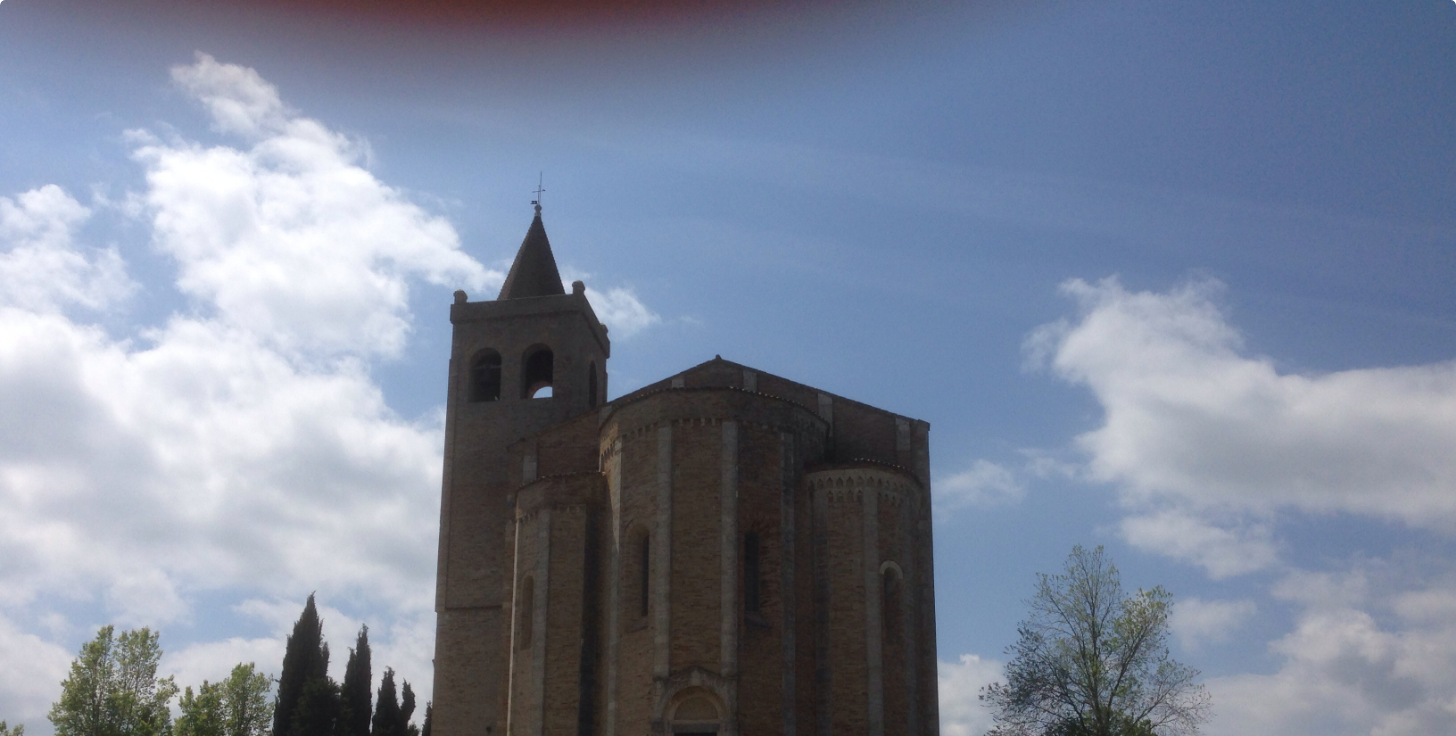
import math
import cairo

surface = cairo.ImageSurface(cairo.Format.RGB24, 1456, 736)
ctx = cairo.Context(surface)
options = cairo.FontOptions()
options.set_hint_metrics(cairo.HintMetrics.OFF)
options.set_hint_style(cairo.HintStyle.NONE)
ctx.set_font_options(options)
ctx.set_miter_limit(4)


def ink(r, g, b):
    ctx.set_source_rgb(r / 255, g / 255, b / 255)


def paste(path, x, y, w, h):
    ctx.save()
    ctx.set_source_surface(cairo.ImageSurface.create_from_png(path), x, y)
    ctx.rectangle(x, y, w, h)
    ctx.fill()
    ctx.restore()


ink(255, 255, 255)
ctx.paint()
paste("pic1.png", 0, 0, 1456, 736)
surface.write_to_png("screenshot.png")
